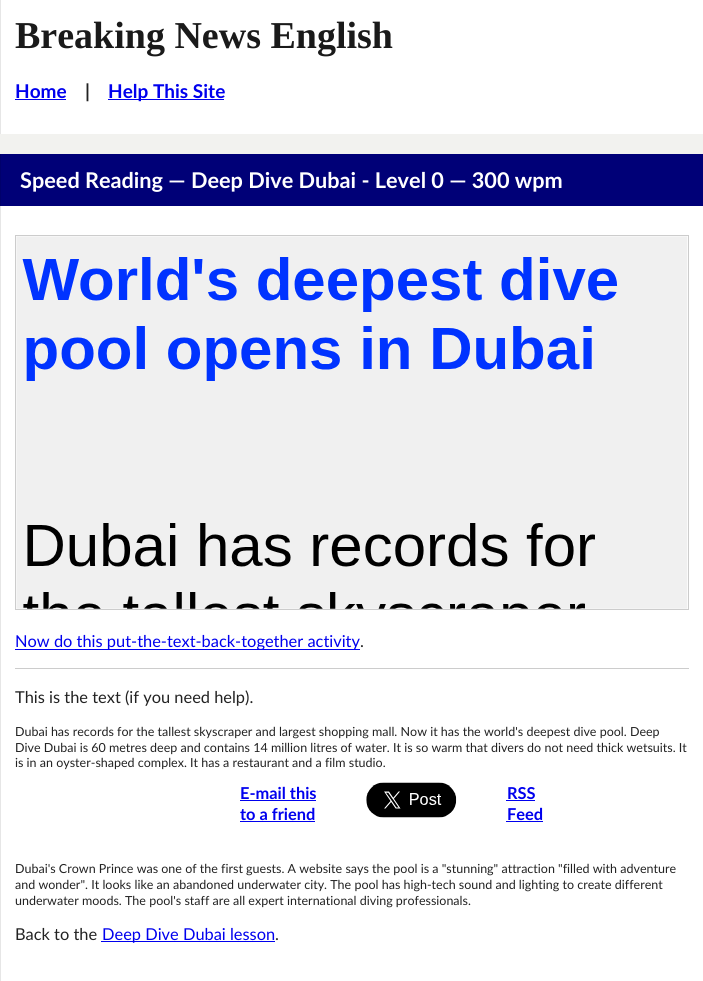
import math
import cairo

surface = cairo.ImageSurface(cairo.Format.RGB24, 703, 981)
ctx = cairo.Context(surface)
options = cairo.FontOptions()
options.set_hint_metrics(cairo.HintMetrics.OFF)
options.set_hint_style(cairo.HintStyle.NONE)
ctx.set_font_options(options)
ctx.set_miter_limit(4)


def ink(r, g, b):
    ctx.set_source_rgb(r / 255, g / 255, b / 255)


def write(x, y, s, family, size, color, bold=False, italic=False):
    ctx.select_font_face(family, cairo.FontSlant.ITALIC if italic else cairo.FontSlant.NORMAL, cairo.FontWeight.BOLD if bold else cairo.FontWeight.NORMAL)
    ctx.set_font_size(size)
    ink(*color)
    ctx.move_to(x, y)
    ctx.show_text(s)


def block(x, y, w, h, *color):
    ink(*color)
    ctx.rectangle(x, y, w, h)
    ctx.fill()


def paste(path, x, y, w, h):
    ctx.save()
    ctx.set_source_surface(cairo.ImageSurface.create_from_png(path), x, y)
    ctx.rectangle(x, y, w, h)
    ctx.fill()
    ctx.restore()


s1 = dict(family="Liberation Serif", size=38, color=(26, 26, 26), bold=True)
s2 = dict(family="Lato", size=19, color=(0, 0, 238), bold=True)
s3 = dict(family="Lato", size=19, color=(34, 34, 34), bold=True)
s4 = dict(family="Lato", size=21.7, color=(255, 255, 255), bold=True)
s5 = dict(family="Lato", size=16.4, color=(0, 0, 238))
s6 = dict(family="Lato", size=16.4, color=(34, 34, 34))
s7 = dict(family="Lato", size=12.5, color=(34, 34, 34))
s8 = dict(family="Lato", size=16.4, color=(0, 0, 238), bold=True)

ink(242, 242, 239)
ctx.paint()
block(1, 0, 702, 134, 255, 255, 255)
block(0, 0, 1, 134, 230, 230, 230)
write(15, 48, "Breaking News English", **s1)
write(15, 98, "Home", **s2)
block(15, 99, 51, 1, 0, 0, 238)
write(85, 98, "|", **s3)
block(108, 99, 116, 1, 0, 0, 238)
write(108, 98, "Help This Site", **s2)
block(1, 154, 702, 52, 0, 0, 119)
block(0, 154, 1, 52, 0, 0, 107)
write(20, 188, "Speed Reading — Deep Dive Dubai - Level 0 — 300 wpm", **s4)
block(1, 206, 702, 775, 255, 255, 255)
block(0, 206, 1, 775, 230, 230, 230)
ctx.rectangle(15.5, 235.5, 673, 374)
ink(204, 204, 204)
ctx.set_line_width(1)
ctx.stroke()
paste("pic1.png", 16, 236, 672, 373)
block(15, 649, 345, 1, 0, 0, 238)
write(15, 647, "Now do this put-the-text-back-together activity", **s5)
write(360, 647, ".", **s6)
block(15, 668, 674, 1, 204, 204, 204)
write(15, 703, "This is the text (if you need help).", **s6)
write(15, 736, "Dubai has records for the tallest skyscraper and largest shopping mall. Now it has the world's deepest dive pool. Deep", **s7)
write(15, 752, "Dive Dubai is 60 metres deep and contains 14 million litres of water. It is so warm that divers do not need thick wetsuits. It", **s7)
write(15, 767, "is in an oyster-shaped complex. It has a restaurant and a film studio.", **s7)
write(240, 799, "E-mail this", **s8)
block(240, 800, 76, 1, 0, 0, 238)
write(240, 820, "to a friend", **s8)
block(240, 821, 75, 1, 0, 0, 238)
paste("pic2.png", 366, 782, 91, 36)
write(507, 799, "RSS", **s8)
block(506, 800, 29, 1, 0, 0, 238)
write(507, 820, "Feed", **s8)
block(506, 821, 37, 1, 0, 0, 238)
write(15, 873, "Dubai's Crown Prince was one of the first guests. A website says the pool is a \"stunning\" attraction \"filled with adventure", **s7)
write(15, 889, "and wonder\". It looks like an abandoned underwater city. The pool has high-tech sound and lighting to create different", **s7)
write(15, 905, "underwater moods. The pool's staff are all expert international diving professionals.", **s7)
write(15, 940, "Back to the", **s6)
block(101, 941, 174, 1, 0, 0, 238)
write(102, 940, "Deep Dive Dubai lesson", **s5)
write(275, 940, ".", **s6)
surface.write_to_png("screenshot.png")
